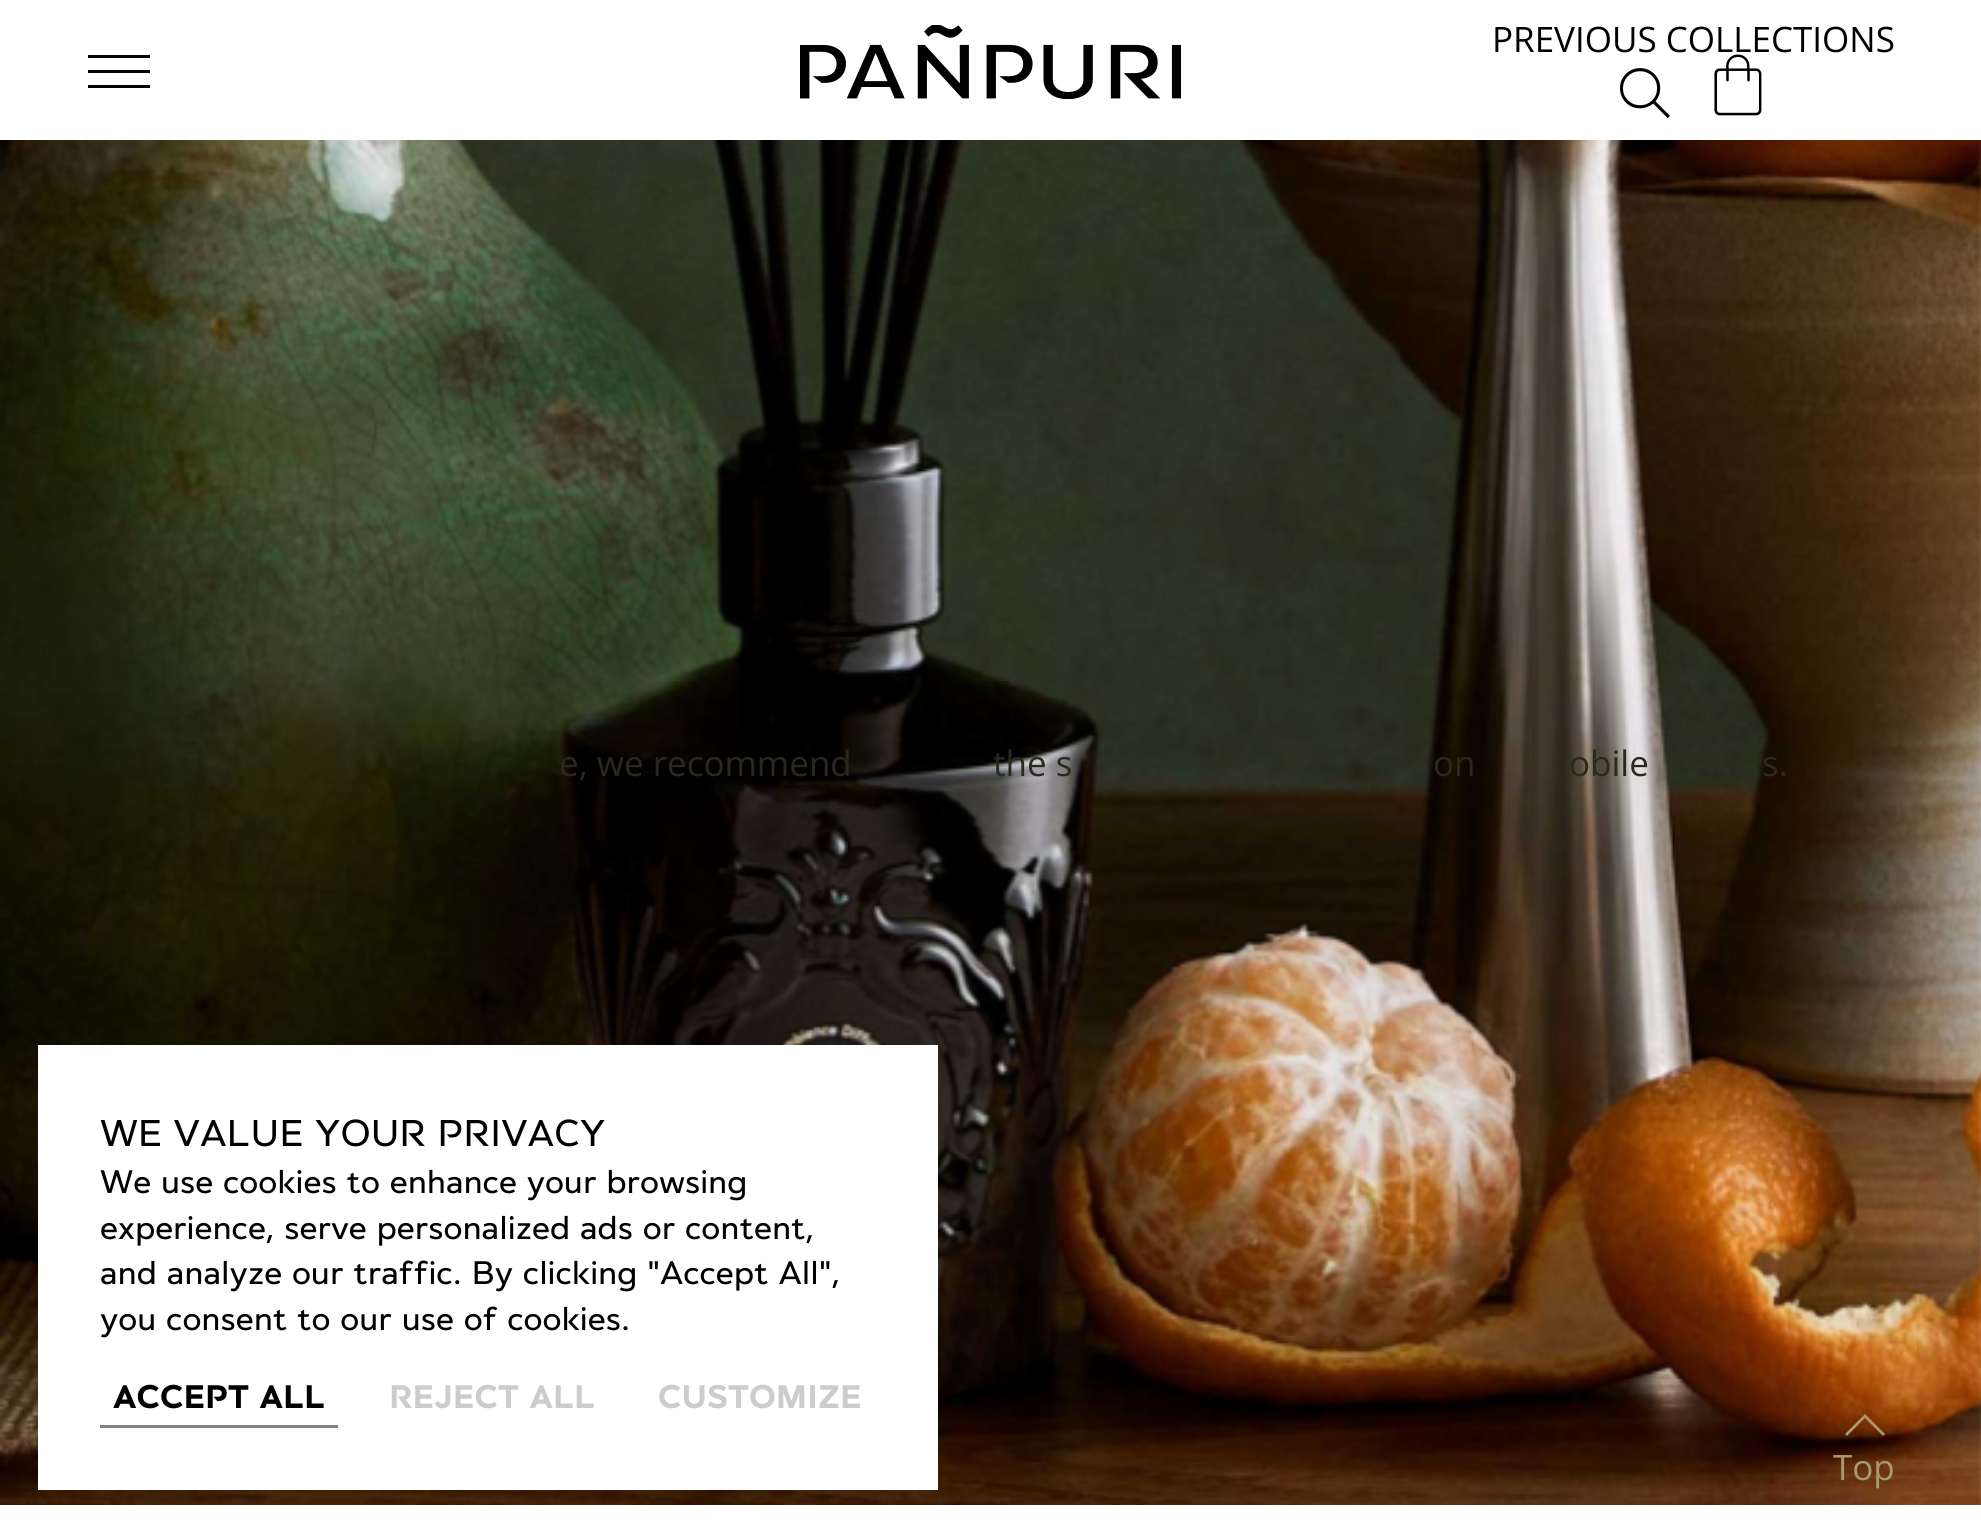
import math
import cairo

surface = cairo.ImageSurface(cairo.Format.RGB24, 1981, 1527)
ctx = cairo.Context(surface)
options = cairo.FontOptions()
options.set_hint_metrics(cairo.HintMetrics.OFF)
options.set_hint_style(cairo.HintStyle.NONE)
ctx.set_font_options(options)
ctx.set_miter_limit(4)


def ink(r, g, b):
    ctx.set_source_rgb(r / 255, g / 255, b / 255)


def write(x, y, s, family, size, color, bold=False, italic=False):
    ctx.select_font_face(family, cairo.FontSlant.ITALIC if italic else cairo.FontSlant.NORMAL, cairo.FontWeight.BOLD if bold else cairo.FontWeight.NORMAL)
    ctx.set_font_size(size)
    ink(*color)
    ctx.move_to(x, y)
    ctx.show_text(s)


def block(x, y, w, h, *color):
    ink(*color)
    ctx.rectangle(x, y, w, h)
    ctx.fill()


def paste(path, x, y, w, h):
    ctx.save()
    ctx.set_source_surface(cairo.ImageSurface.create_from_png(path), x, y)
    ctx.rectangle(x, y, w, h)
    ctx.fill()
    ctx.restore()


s1 = dict(family="Open Sans", size=35, color=(0, 0, 0))
s2 = dict(family="Open Sans", size=35, color=(168, 153, 104))
s3 = dict(family="Open Sans", size=35, color=(41, 41, 29))
s4 = dict(family="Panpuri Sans", size=40, color=(0, 0, 0))
s5 = dict(family="Panpuri Sans", size=35, color=(0, 0, 0))
s6 = dict(family="Panpuri Sans", size=35, color=(0, 0, 0), bold=True)
s7 = dict(family="Panpuri Sans", size=35, color=(204, 204, 204), bold=True)

ink(255, 255, 255)
ctx.paint()
paste("pic1.png", 800, 25, 381, 74)
write(1492, 52, "PREVIOUS COLLECTIONS", **s1)
paste("pic2.png", 1620, 68, 50, 50)
paste("pic3.png", 1714, 54, 48, 62)
block(88, 70, 62, 3, 0, 0, 0)
block(88, 55, 62, 3, 0, 0, 0)
block(88, 85, 62, 3, 0, 0, 0)
paste("pic4.png", 0, 140, 1981, 1365)
ink(168, 153, 104)
ctx.new_path()
ctx.move_to(1847, 1436)
ctx.line_to(1865, 1418)
ctx.line_to(1883, 1436)
ctx.line_to(1885, 1434)
ctx.line_to(1865, 1414)
ctx.line_to(1845, 1434)
ctx.close_path()
ctx.fill()
write(1833, 1480, "Top", **s2)
write(559, 776, "e, we recommend", **s3)
write(993, 776, "the s", **s3)
write(1433, 776, "on", **s3)
write(1569, 776, "obile", **s3)
write(1762, 776, "s.", **s3)
block(38, 1045, 900, 445, 255, 255, 255)
write(100, 1146, "WE VALUE YOUR PRIVACY", **s4)
write(100, 1193, "We use cookies to enhance your browsing", **s5)
write(100, 1239, "experience, serve personalized ads or content,", **s5)
write(100, 1284, "and analyze our traffic. By clicking \"Accept All\",", **s5)
write(100, 1330, "you consent to our use of cookies.", **s5)
block(100, 1425, 238, 3, 128, 128, 128)
write(113, 1408, "ACCEPT ALL", **s6)
write(389, 1408, "REJECT ALL", **s7)
write(658, 1408, "CUSTOMIZE", **s7)
surface.write_to_png("screenshot.png")
